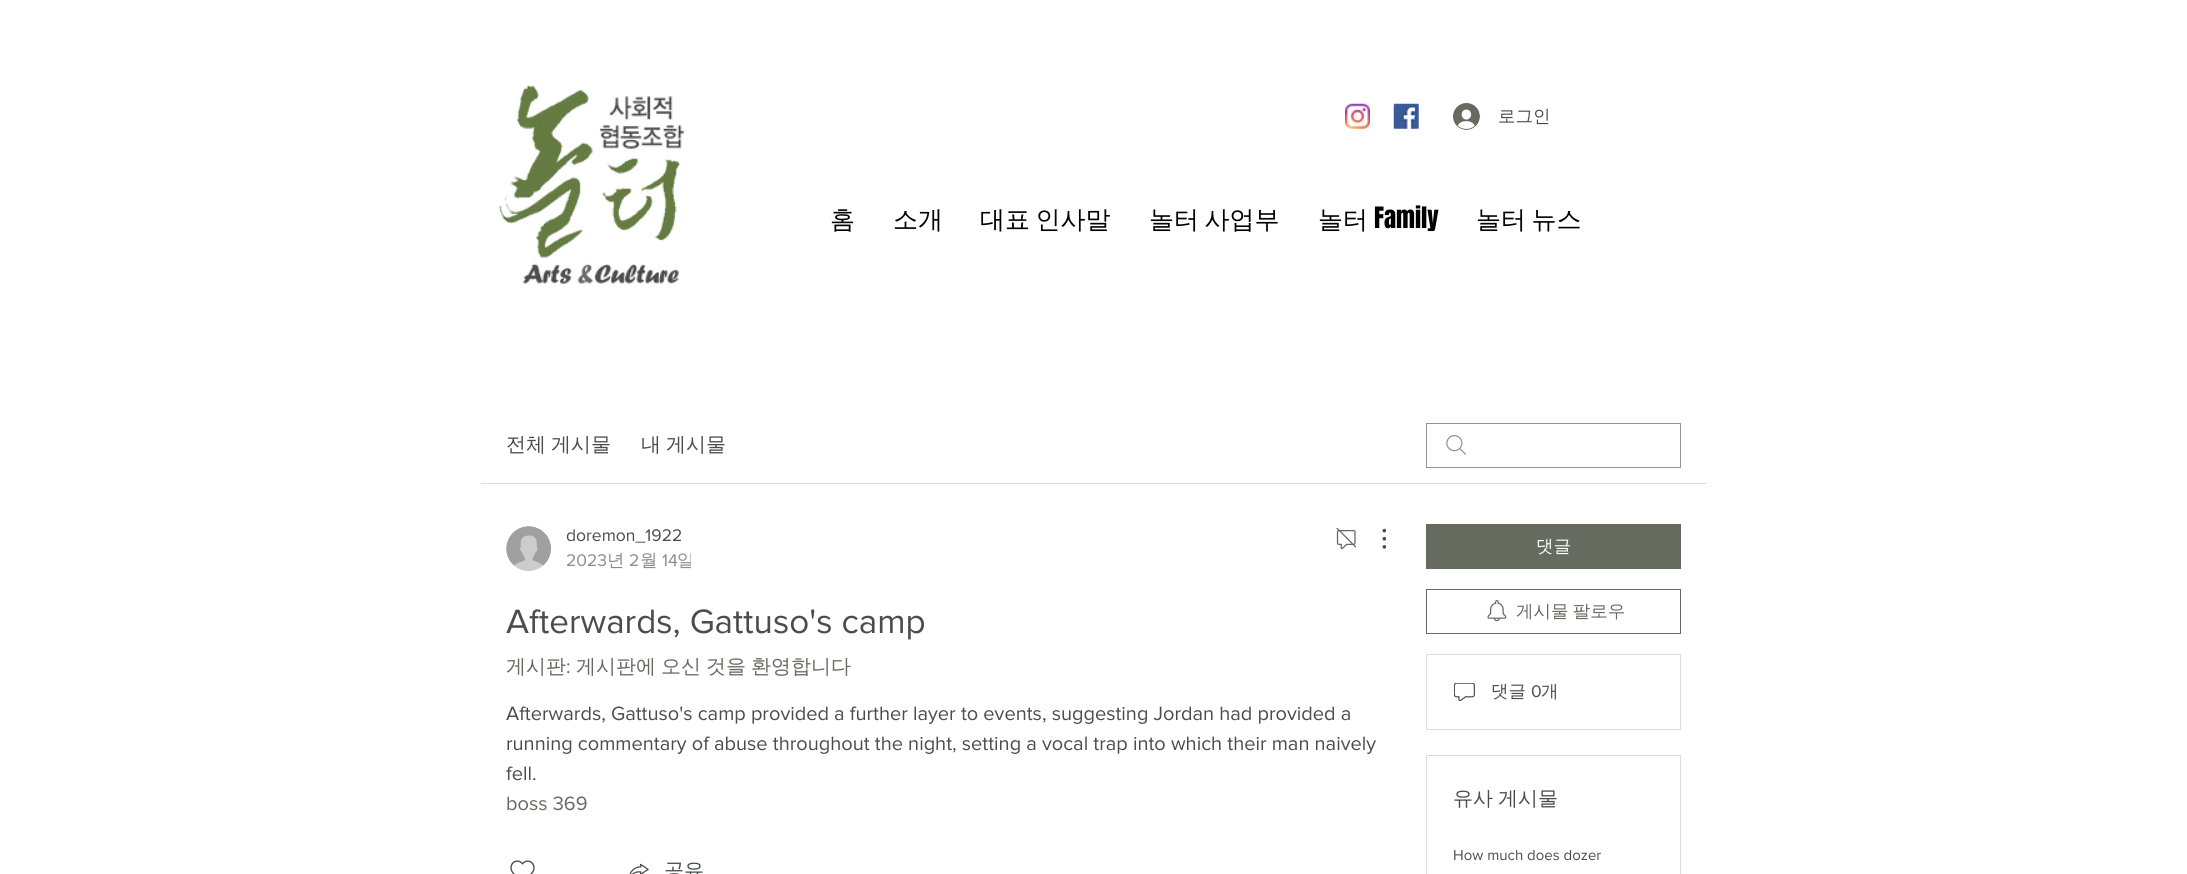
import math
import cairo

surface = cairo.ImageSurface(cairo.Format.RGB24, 2187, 874)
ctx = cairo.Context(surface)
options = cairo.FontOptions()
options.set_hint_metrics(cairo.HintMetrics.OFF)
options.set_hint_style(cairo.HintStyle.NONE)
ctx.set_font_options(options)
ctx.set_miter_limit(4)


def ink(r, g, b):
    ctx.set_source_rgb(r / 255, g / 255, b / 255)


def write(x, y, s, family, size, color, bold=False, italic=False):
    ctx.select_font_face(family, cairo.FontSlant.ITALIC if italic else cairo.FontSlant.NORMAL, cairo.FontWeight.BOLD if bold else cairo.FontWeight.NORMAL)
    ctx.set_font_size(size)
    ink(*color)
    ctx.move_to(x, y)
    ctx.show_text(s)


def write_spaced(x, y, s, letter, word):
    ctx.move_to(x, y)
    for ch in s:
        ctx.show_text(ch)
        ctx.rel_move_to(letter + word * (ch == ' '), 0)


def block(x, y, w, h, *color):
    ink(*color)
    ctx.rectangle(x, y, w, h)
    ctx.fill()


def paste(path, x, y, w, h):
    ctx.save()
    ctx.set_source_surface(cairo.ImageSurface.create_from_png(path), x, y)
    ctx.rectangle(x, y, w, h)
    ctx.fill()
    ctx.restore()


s1 = dict(family="WenQuanYi Zen Hei Medium", size=17.5, color=(75, 76, 77))
s2 = dict(family="WenQuanYi Zen Hei Medium", size=25, color=(0, 0, 0))
s3 = dict(family="Anton", size=25, color=(0, 0, 0))
s4 = dict(family="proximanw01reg", size=17.5, color=(75, 76, 77))
s5 = dict(family="proximanw01reg", size=17.5, color=(140, 140, 141))
s6 = dict(family="WenQuanYi Zen Hei Medium", size=17.5, color=(140, 140, 141))
s7 = dict(family="proximanw01reg", size=35, color=(75, 76, 77))
s8 = dict(family="WenQuanYi Zen Hei Medium", size=20, color=(102, 107, 96))
s9 = dict(family="proximanw01reg", size=20, color=(102, 107, 96))
s10 = dict(family="proximanw01reg", size=20, color=(75, 76, 77))
s11 = dict(family="WenQuanYi Zen Hei Medium", size=20, color=(75, 76, 77))
s12 = dict(family="WenQuanYi Zen Hei Medium", size=17.5, color=(255, 255, 255))
s13 = dict(family="proximanw01reg", size=15, color=(75, 76, 77))

ink(255, 255, 255)
ctx.paint()
paste("pic1.png", 498, 85, 186, 199)
paste("pic2.png", 1345, 103, 25, 26)
paste("pic3.png", 1393, 103, 26, 26)
paste("pic4.png", 1453, 103, 27, 27)
write(1498, 122, "로그인", **s1)
write(830, 228, "홈", **s2)
write(893, 228, "소개", **s2)
write_spaced(980, 228, "대표 인사말", 0, -2)
write_spaced(1149, 228, "놀터 사업부", 0, -2)
write(1318, 228, "놀터", **s2)
write(1374, 228, "Family", **s3)
ctx.select_font_face("WenQuanYi Zen Hei Medium")
write_spaced(1476, 228, "놀터 뉴스", 0, -2)
block(481, 483, 1225, 1, 219, 219, 219)
ctx.set_font_size(20)
ink(75, 76, 77)
write_spaced(506, 451, "전체 게시물", 0, -1)
write_spaced(641, 451, "내 게시물", 0, -1)
paste("pic5.png", 1446, 435, 21, 20)
ctx.rectangle(1426.5, 423.5, 254, 44)
ink(147, 148, 148)
ctx.set_line_width(1)
ctx.stroke()
paste("pic6.png", 506, 526, 45, 45)
write(566, 541, "doremon_1922", **s4)
write(566, 566, "2023", **s5)
write(607, 566, "년", **s6)
write(629, 566, "2", **s5)
write(640, 566, "월", **s6)
write(662, 566, "14", **s5)
ctx.save()
ctx.rectangle(551, 524, 140, 50)
ctx.clip()
write(677, 566, "일", **s6)
ctx.restore()
paste("pic7.png", 1336, 528, 20, 22)
paste("pic8.png", 1382, 528, 4, 21)
write(506, 633, "Afterwards, Gattuso's camp", **s7)
write(506, 673, "게시판", **s8)
write(566, 673, ":", **s9)
ctx.select_font_face("WenQuanYi Zen Hei Medium")
write_spaced(576, 673, "게시판에 오신 것을 환영합니다", 0, -1)
write(506, 720, "Afterwards, Gattuso's camp provided a further layer to events, suggesting Jordan had provided a", **s10)
write(506, 750, "running commentary of abuse throughout the night, setting a vocal trap into which their man naively", **s10)
write(506, 780, "fell.", **s10)
write(506, 810, "boss 369", **s9)
paste("pic9.png", 510, 860, 25, 14)
paste("pic10.png", 629, 863, 20, 11)
write(664, 877, "공유", **s11)
block(1426, 524, 255, 45, 102, 107, 96)
write(1536, 552, "댓글", **s12)
ctx.rectangle(1426.5, 589.5, 254, 44)
ink(102, 107, 96)
ctx.stroke()
paste("pic11.png", 1487, 600, 20, 22)
write_spaced(1516, 617, "게시물 팔로우", 0, -1)
ctx.rectangle(1426.5, 654.5, 254, 75)
ink(219, 219, 219)
ctx.stroke()
paste("pic12.png", 1454, 683, 21, 18)
write(1491, 697, "댓글", **s1)
write(1531, 697, "0", **s4)
write(1541, 697, "개", **s1)
ctx.rectangle(1426.5, 755.5, 254, 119)
ink(219, 219, 219)
ctx.stroke()
ctx.set_font_size(20)
ink(75, 76, 77)
write_spaced(1453, 805, "유사 게시물", 0, -1)
write(1453, 860, "How much does dozer", **s13)
surface.write_to_png("screenshot.png")
